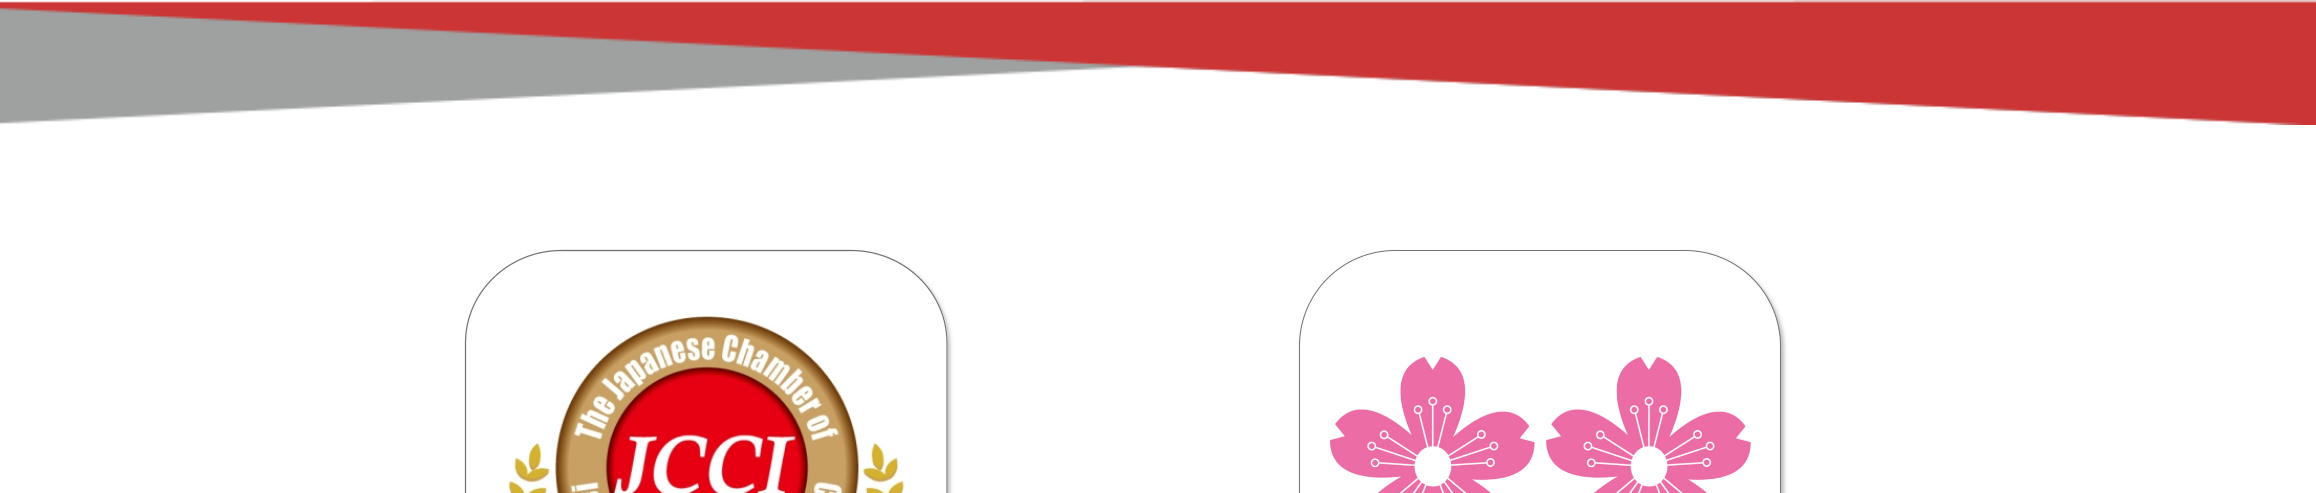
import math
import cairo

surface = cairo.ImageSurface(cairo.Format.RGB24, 2316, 493)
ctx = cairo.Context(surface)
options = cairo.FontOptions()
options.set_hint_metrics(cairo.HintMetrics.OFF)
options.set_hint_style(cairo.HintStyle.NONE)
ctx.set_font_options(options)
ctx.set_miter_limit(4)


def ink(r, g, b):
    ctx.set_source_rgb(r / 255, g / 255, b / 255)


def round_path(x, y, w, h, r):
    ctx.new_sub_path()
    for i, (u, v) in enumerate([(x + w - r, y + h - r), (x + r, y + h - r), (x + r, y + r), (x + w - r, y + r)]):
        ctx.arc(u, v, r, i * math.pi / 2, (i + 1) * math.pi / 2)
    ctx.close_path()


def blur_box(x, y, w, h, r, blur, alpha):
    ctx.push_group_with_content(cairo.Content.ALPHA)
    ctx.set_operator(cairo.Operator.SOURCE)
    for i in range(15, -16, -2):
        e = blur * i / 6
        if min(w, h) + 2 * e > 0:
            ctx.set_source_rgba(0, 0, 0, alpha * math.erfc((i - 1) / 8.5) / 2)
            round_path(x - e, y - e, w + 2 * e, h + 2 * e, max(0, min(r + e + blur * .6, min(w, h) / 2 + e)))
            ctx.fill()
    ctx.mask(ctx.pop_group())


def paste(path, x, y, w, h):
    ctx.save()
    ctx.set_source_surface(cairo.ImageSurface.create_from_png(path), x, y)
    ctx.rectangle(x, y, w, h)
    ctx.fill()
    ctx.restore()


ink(255, 255, 255)
ctx.paint()
paste("pic1.png", 0, 0, 2316, 125)
ink(188, 188, 188)
blur_box(468, 253, 482, 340, 94, 2, 1)
ink(255, 255, 255)
ctx.new_path()
ctx.move_to(562, 250)
ctx.line_to(851, 250)
ctx.curve_to(904, 250, 948, 292, 948, 343)
ctx.line_to(948, 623)
ctx.curve_to(948, 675, 904, 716, 851, 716)
ctx.line_to(562, 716)
ctx.curve_to(508, 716, 465, 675, 465, 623)
ctx.line_to(465, 343)
ctx.curve_to(465, 292, 508, 250, 562, 250)
ctx.close_path()
ctx.fill()
ctx.new_path()
ctx.move_to(561.5, 250.5)
ctx.line_to(851, 250.5)
ctx.curve_to(904, 250.5, 947, 292, 947, 343)
ctx.line_to(947, 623)
ctx.curve_to(947, 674, 904, 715.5, 851, 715.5)
ctx.line_to(561.5, 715.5)
ctx.curve_to(508.5, 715.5, 465.5, 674, 465.5, 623)
ctx.line_to(465.5, 343)
ctx.curve_to(465.5, 292, 508.5, 250.5, 561.5, 250.5)
ctx.close_path()
ink(113, 113, 113)
ctx.set_line_width(1.2)
ctx.stroke()
paste("pic2.png", 508, 315, 397, 178)
ink(188, 188, 188)
blur_box(1301, 253, 483, 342, 96, 2, 1)
ink(255, 255, 255)
round_path(1299.5, 250.5, 481, 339, 95.5)
ctx.fill_preserve()
ink(113, 113, 113)
ctx.set_line_width(1)
ctx.stroke()
paste("pic3.png", 1329, 356, 422, 137)
surface.write_to_png("screenshot.png")
